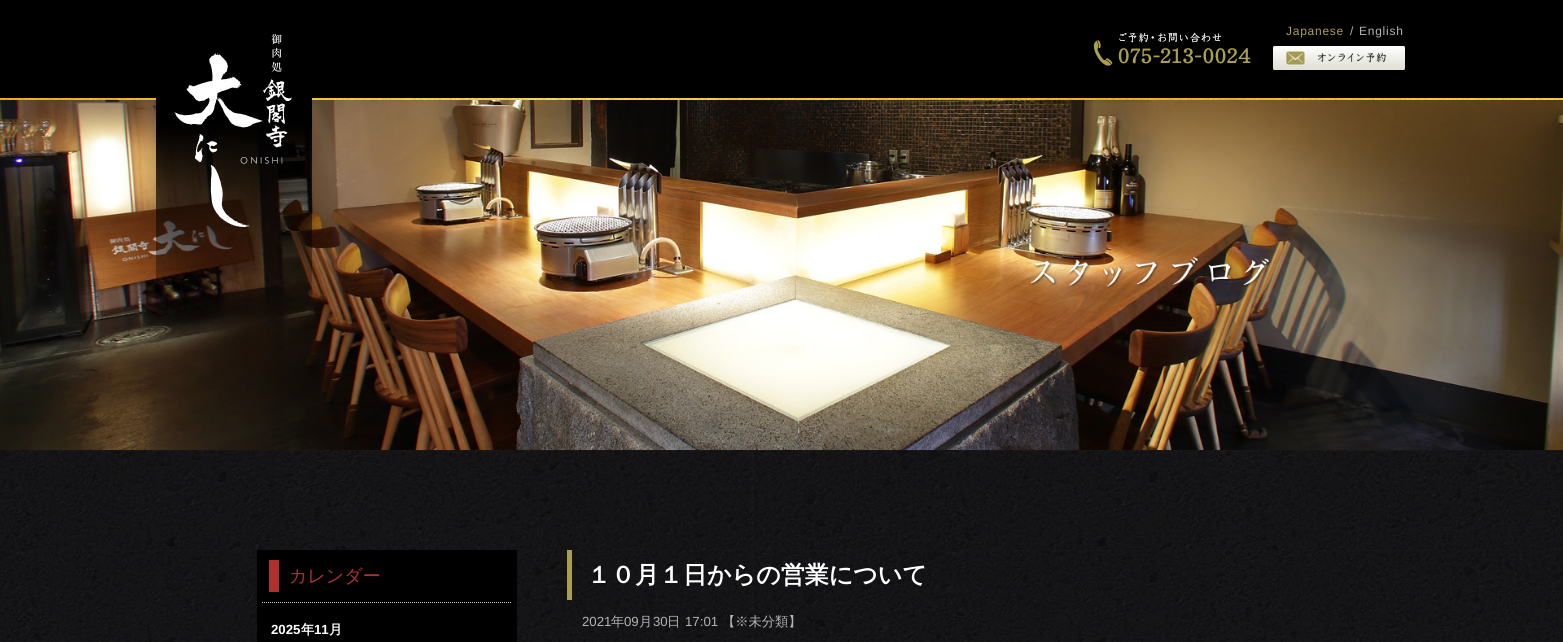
import math
import cairo

surface = cairo.ImageSurface(cairo.Format.RGB24, 1563, 642)
ctx = cairo.Context(surface)
options = cairo.FontOptions()
options.set_hint_metrics(cairo.HintMetrics.OFF)
options.set_hint_style(cairo.HintStyle.NONE)
ctx.set_font_options(options)
ctx.set_miter_limit(4)


def ink(r, g, b):
    ctx.set_source_rgb(r / 255, g / 255, b / 255)


def write(x, y, s, family, size, color, bold=False, italic=False):
    ctx.select_font_face(family, cairo.FontSlant.ITALIC if italic else cairo.FontSlant.NORMAL, cairo.FontWeight.BOLD if bold else cairo.FontWeight.NORMAL)
    ctx.set_font_size(size)
    ink(*color)
    ctx.move_to(x, y)
    ctx.show_text(s)


def write_spaced(x, y, s, letter, word):
    ctx.move_to(x, y)
    for ch in s:
        ctx.show_text(ch)
        ctx.rel_move_to(letter + word * (ch == ' '), 0)


def block(x, y, w, h, *color):
    ink(*color)
    ctx.rectangle(x, y, w, h)
    ctx.fill()


def paste(path, x, y, w, h):
    ctx.save()
    ctx.set_source_surface(cairo.ImageSurface.create_from_png(path), x, y)
    ctx.rectangle(x, y, w, h)
    ctx.fill()
    ctx.restore()


s1 = dict(family="WenQuanYi Zen Hei Medium", size=18, color=(174, 49, 46))
s2 = dict(family="Liberation Sans", size=13.25, color=(255, 255, 255), bold=True)
s3 = dict(family="WenQuanYi Zen Hei", size=13.25, color=(255, 255, 255), bold=True)
s4 = dict(family="WenQuanYi Zen Hei", size=24, color=(255, 255, 255), bold=True)
s5 = dict(family="Liberation Sans", size=13.25, color=(179, 179, 179))
s6 = dict(family="WenQuanYi Zen Hei Medium", size=13.25, color=(179, 179, 179))

ink(0, 0, 0)
ctx.paint()
paste("pic1.png", 0, 98, 1563, 2)
paste("pic5.png", 0, 100, 1563, 350)
paste("pic2.png", 156, 34, 156, 283)
paste("pic3.png", 1093, 32, 158, 34)
ctx.select_font_face("Liberation Sans")
ctx.set_font_size(12)
ink(169, 159, 81)
write_spaced(1286, 35, "Japanese", 0.75, 0)
ink(179, 179, 179)
write_spaced(1350, 35, "/", 0.75, 0)
write_spaced(1359, 35, "English", 0.75, 0)
paste("pic4.png", 1273, 46, 132, 24)
paste("pic6.png", 0, 450, 1563, 192)
block(257, 550, 260, 92, 0, 0, 0)
ctx.new_path()
ctx.move_to(262, 602.5)
ctx.line_to(512, 602.5)
ink(204, 204, 204)
ctx.set_line_width(1)
ctx.set_dash([1, 1])
ctx.stroke()
block(269, 560, 10, 32, 174, 49, 46)
write(289, 582, "カレンダー", **s1)
write(271, 634, "2025", **s2)
write(301, 634, "年", **s3)
write(314, 634, "11", **s2)
write(329, 634, "月", **s3)
block(567, 550, 5, 50, 169, 159, 81)
write(587, 583, "１０月１日からの営業について", **s4)
write(582, 626, "2021", **s5)
write(611, 626, "年", **s6)
write(624, 626, "09", **s5)
write(639, 626, "月", **s6)
write(653, 626, "30", **s5)
write(667, 626, "日", **s6)
write(685, 626, "17:01", **s5)
write(722, 626, "【※未分類】", **s6)
surface.write_to_png("screenshot.png")
